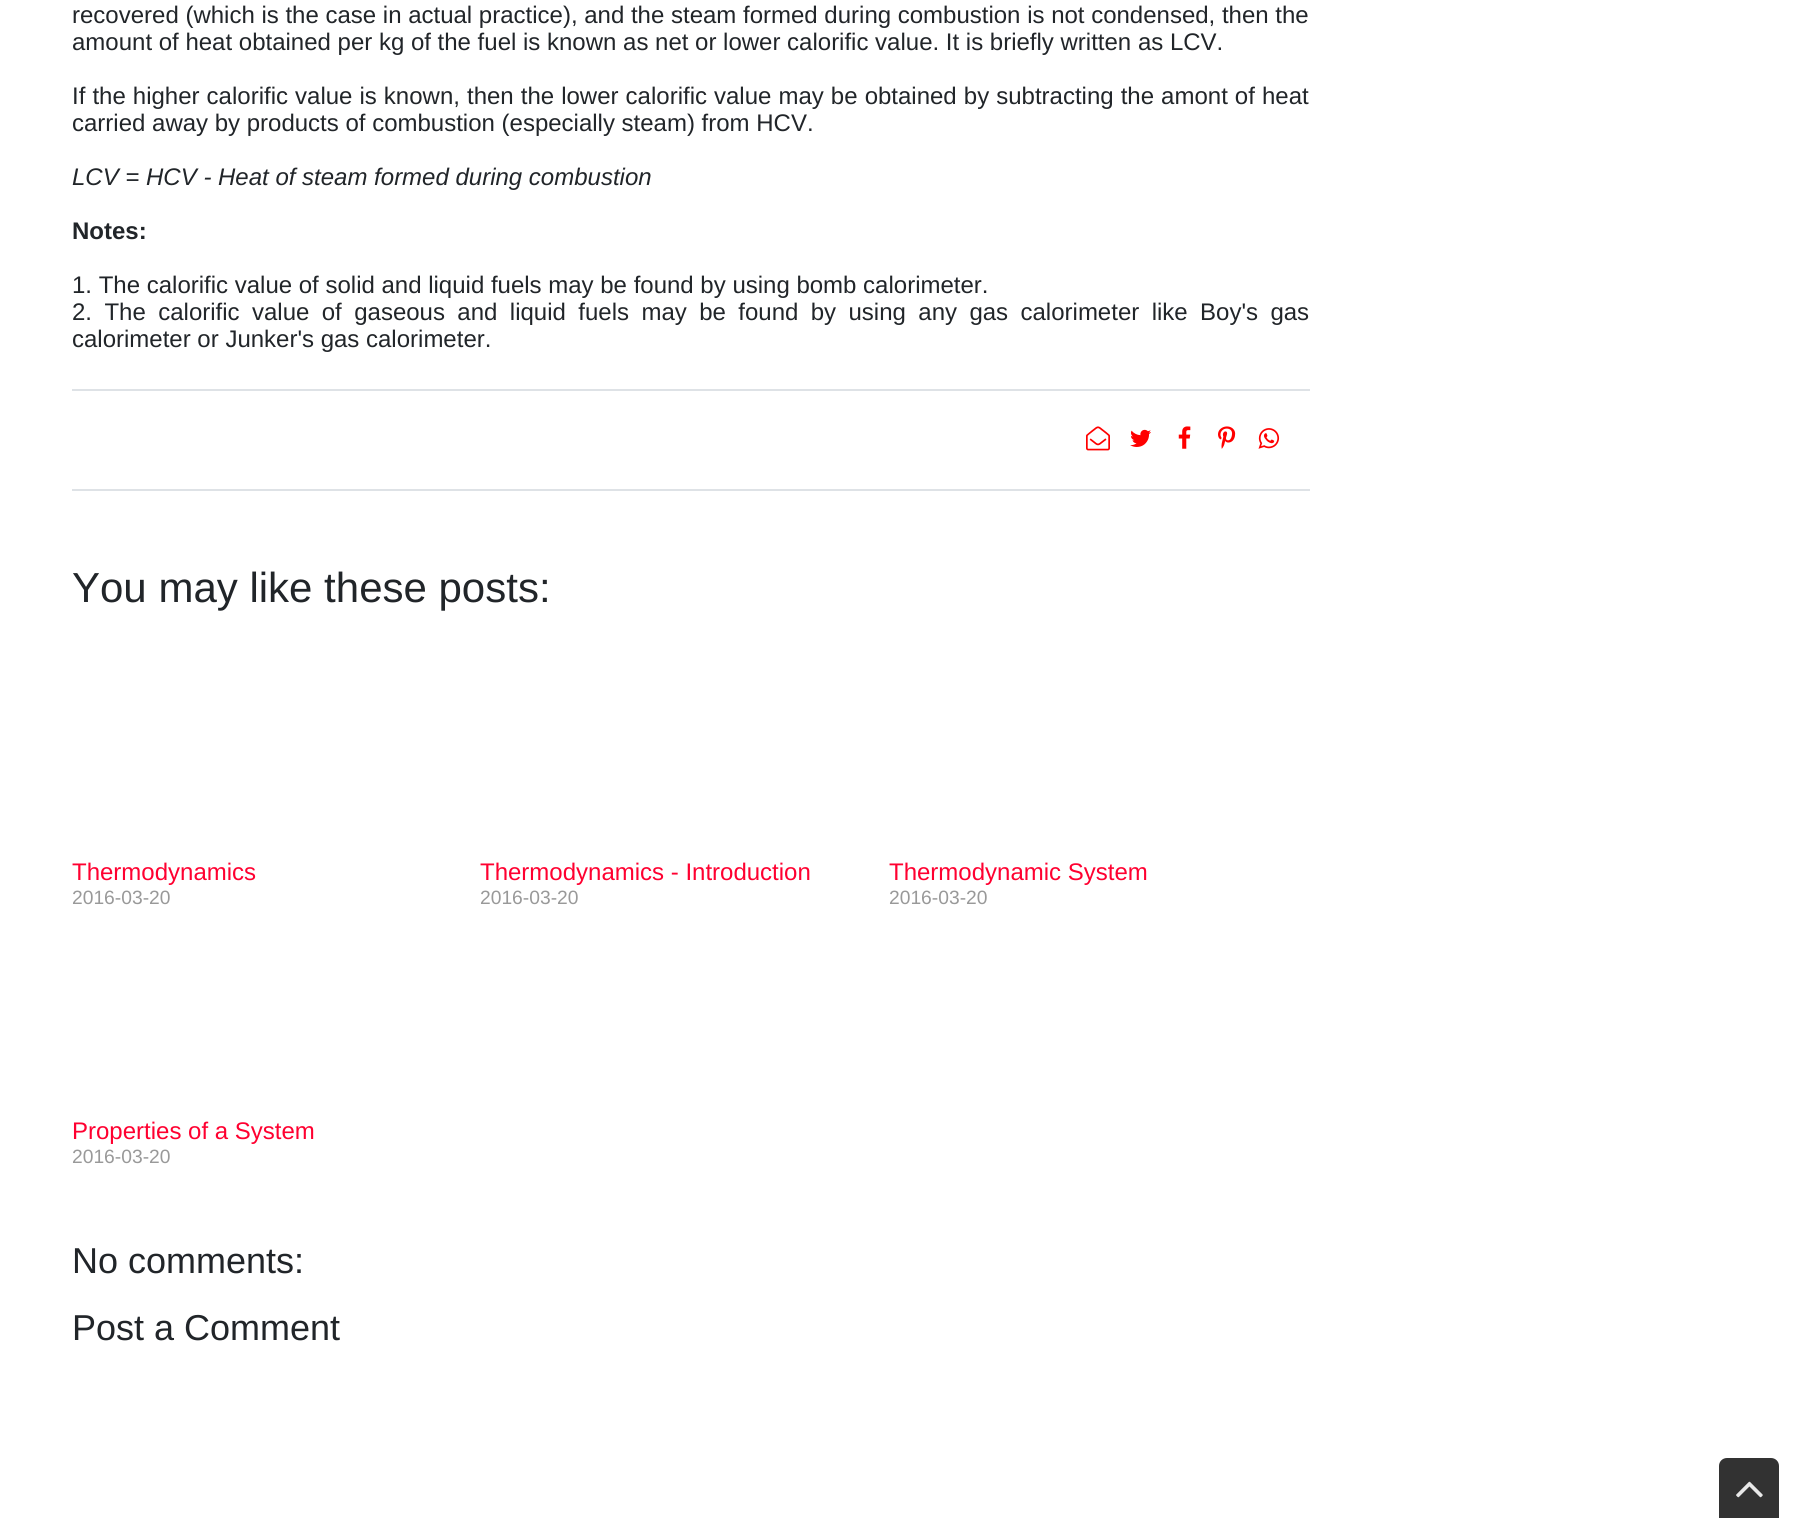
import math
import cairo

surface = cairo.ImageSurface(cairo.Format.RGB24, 1808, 1518)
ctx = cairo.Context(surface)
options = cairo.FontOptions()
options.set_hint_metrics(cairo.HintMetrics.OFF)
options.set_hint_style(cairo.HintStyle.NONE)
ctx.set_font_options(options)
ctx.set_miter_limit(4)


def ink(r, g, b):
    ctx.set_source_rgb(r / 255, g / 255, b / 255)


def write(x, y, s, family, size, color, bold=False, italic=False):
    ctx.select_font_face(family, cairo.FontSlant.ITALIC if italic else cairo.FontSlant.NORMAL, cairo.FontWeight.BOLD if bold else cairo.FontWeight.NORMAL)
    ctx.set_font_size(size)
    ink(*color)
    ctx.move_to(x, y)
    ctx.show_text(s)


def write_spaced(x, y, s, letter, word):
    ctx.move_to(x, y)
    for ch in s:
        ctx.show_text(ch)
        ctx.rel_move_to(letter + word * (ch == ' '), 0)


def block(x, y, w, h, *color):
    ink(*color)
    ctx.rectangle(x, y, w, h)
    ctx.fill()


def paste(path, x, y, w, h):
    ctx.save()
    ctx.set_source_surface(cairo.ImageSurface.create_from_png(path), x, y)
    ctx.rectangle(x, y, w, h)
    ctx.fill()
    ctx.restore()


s1 = dict(family="Liberation Sans", size=24, color=(33, 37, 41))
s2 = dict(family="Liberation Sans", size=24, color=(33, 37, 41), italic=True)
s3 = dict(family="Liberation Sans", size=24, color=(33, 37, 41), bold=True)
s4 = dict(family="Liberation Sans", size=42, color=(33, 37, 41))
s5 = dict(family="Liberation Sans", size=24, color=(255, 0, 48))
s6 = dict(family="Liberation Sans", size=19.25, color=(153, 153, 153))
s7 = dict(family="Liberation Sans", size=36, color=(33, 37, 41))

ink(255, 255, 255)
ctx.paint()
block(72, 389, 1238, 2, 222, 226, 230)
write(72, 23, "recovered (which is the case in actual practice), and the steam formed during combustion is not condensed, then the", **s1)
write(72, 50, "amount of heat obtained per kg of the fuel is known as net or lower calorific value. It is briefly written as LCV.", **s1)
write_spaced(72, 104, "If the higher calorific value is known, then the lower calorific value may be obtained by subtracting the amont of heat", 0, 0.4)
write(72, 131, "carried away by products of combustion (especially steam) from HCV.", **s1)
write(72, 185, "LCV = HCV - Heat of steam formed during combustion", **s2)
write(72, 239, "Notes:", **s3)
write(72, 293, "1. The calorific value of solid and liquid fuels may be found by using bomb calorimeter.", **s1)
write_spaced(72, 320, "2. The calorific value of gaseous and liquid fuels may be found by using any gas calorimeter like Boy's gas", 0, 5.75)
write(72, 347, "calorimeter or Junker's gas calorimeter.", **s1)
block(72, 489, 1238, 2, 222, 226, 230)
paste("pic1.png", 1086, 426, 24, 25)
paste("pic2.png", 1130, 429, 21, 18)
paste("pic3.png", 1178, 426, 13, 23)
paste("pic4.png", 1218, 426, 18, 23)
paste("pic5.png", 1258, 428, 22, 21)
write(72, 602, "You may like these posts:", **s4)
write(72, 880, "Thermodynamics", **s5)
write(72, 904, "2016-03-20", **s6)
write(480, 880, "Thermodynamics - Introduction", **s5)
write(480, 904, "2016-03-20", **s6)
write(889, 880, "Thermodynamic System", **s5)
write(889, 904, "2016-03-20", **s6)
write(72, 1139, "Properties of a System", **s5)
write(72, 1163, "2016-03-20", **s6)
write(72, 1273, "No comments:", **s7)
write(72, 1340, "Post a Comment", **s7)
ink(50, 50, 50)
ctx.new_path()
ctx.move_to(1727, 1458)
ctx.line_to(1771, 1458)
ctx.curve_to(1775.5, 1458, 1779, 1461.5, 1779, 1466)
ctx.line_to(1779, 1518)
ctx.line_to(1719, 1518)
ctx.line_to(1719, 1466)
ctx.curve_to(1719, 1461.5, 1722.5, 1458, 1727, 1458)
ctx.close_path()
ctx.fill()
paste("pic6.png", 1736, 1481, 27, 17)
surface.write_to_png("screenshot.png")
